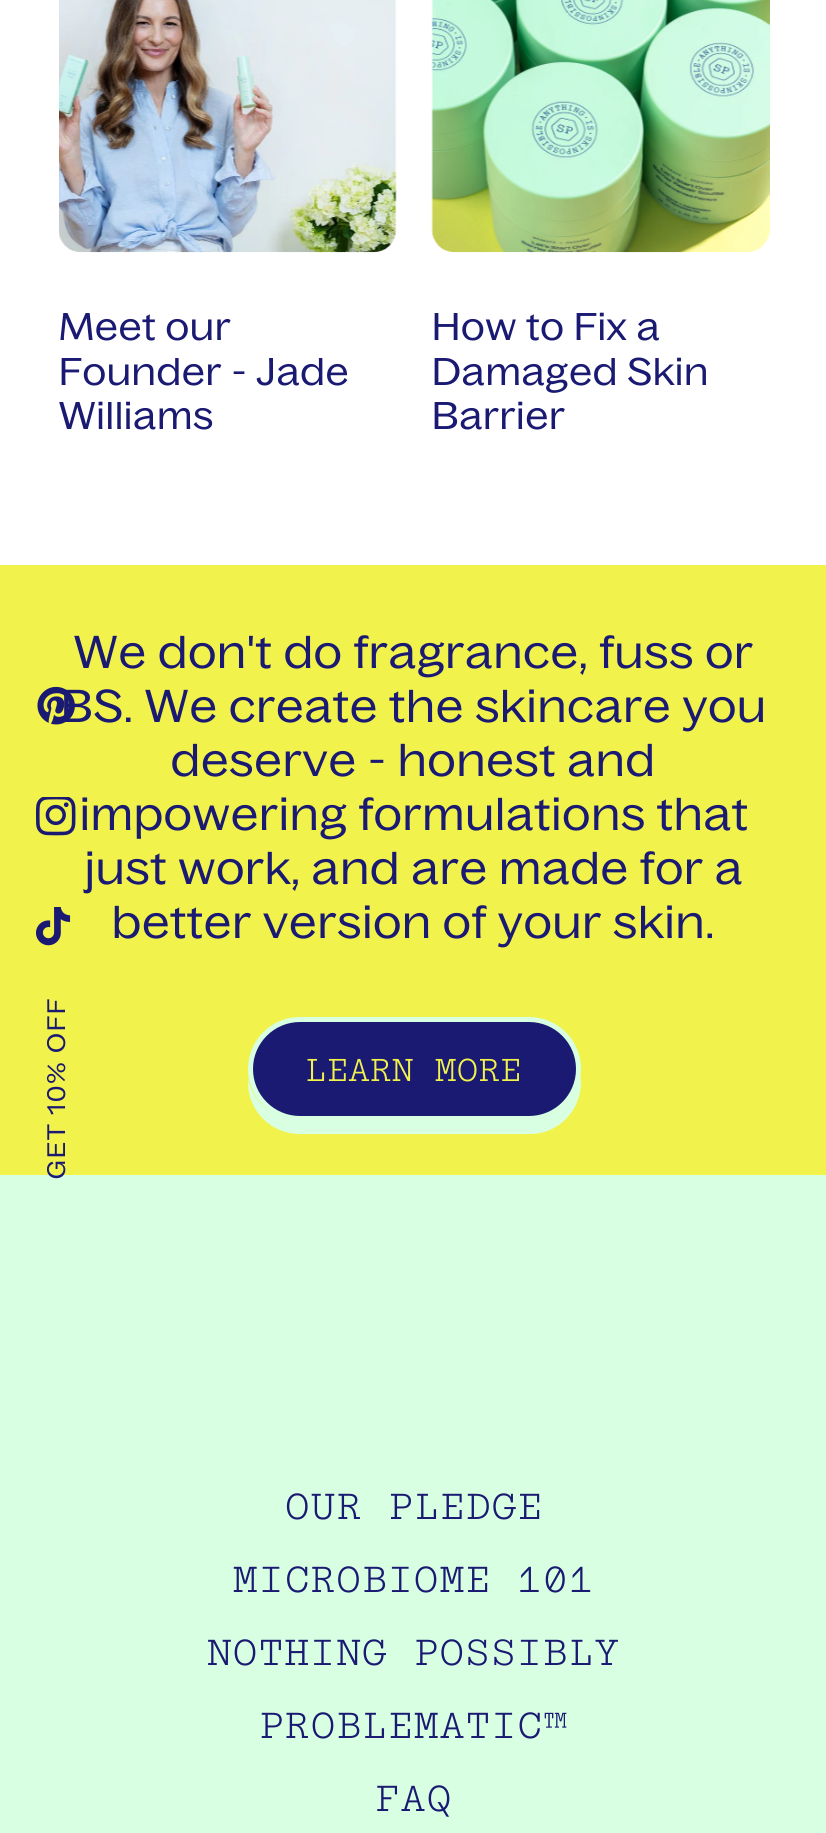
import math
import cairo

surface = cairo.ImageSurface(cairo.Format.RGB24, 826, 1833)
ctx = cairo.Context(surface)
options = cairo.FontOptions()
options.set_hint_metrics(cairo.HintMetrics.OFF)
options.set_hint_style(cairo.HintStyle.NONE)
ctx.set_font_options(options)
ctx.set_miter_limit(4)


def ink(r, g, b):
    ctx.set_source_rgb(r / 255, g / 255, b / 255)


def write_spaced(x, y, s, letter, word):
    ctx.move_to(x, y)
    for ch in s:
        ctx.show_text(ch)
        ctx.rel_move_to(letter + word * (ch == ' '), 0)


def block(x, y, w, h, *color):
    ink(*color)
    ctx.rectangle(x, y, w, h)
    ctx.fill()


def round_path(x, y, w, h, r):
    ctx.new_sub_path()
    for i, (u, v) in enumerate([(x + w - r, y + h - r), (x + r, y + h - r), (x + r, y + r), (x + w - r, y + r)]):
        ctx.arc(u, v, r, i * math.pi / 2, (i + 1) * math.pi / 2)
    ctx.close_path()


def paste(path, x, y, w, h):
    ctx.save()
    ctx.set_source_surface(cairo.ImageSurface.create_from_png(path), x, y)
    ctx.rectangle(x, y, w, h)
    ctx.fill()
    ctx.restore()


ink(255, 255, 255)
ctx.paint()
block(0, 565, 826, 610, 242, 242, 77)
ctx.select_font_face("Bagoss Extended")
ctx.set_font_size(45)
ink(26, 26, 115)
write_spaced(61, 722, "BS. We create the skincare you", 1.35, 0)
paste("pic1.png", 37, 686, 38, 39)
paste("pic2.png", 36, 797, 40, 39)
paste("pic3.png", 36, 907, 35, 39)
block(0, 1175, 826, 658, 216, 255, 226)
ctx.set_font_size(24.75)
ink(26, 26, 115)
ctx.save()
ctx.translate(65, 1179)
ctx.rotate(-90 * math.pi / 180)
write_spaced(0, 0, "GET 10% OFF", 2.25, 0)
ctx.restore()
paste("pic4.png", 59, 0, 338, 253)
ctx.set_font_size(37.75)
write_spaced(59, 340, "Meet our", 1.1, 0)
write_spaced(59, 385, "Founder - Jade", 1.1, 0)
write_spaced(59, 429, "Williams", 1.1, 0)
paste("pic5.png", 431, 0, 339, 253)
write_spaced(432, 340, "How to Fix a", 1.1, 0)
write_spaced(432, 385, "Damaged Skin", 1.1, 0)
write_spaced(432, 429, "Barrier", 1.1, 0)
ctx.set_font_size(45)
write_spaced(74, 668, "We don't do fragrance, fuss or", 1.35, 0)
write_spaced(171, 776, "deserve - honest and", 1.35, 0)
write_spaced(80, 830, "impowering formulations that", 1.35, 0)
write_spaced(85, 884, "just work, and are made for a", 1.35, 0)
write_spaced(112, 938, "better version of your skin.", 1.35, 0)
ink(216, 255, 226)
ctx.new_path()
ctx.move_to(248, 1078)
ctx.line_to(248, 1082)
ctx.curve_to(248, 1111, 271, 1134, 300, 1134)
ctx.line_to(530, 1134)
ctx.curve_to(558, 1134, 581, 1111, 581, 1082)
ctx.line_to(580, 1074)
ctx.curve_to(578, 1100, 556, 1120, 529, 1120)
ctx.line_to(299, 1120)
ctx.curve_to(274, 1120, 252, 1102, 248, 1078)
ctx.close_path()
ctx.fill()
ink(26, 26, 115)
round_path(250.5, 1019.5, 328, 99, 49.5)
ctx.fill_preserve()
ink(216, 255, 226)
ctx.set_line_width(5)
ctx.stroke()
ctx.select_font_face("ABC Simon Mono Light")
ctx.set_font_size(31.5)
ink(242, 242, 77)
write_spaced(305, 1081, "LEARN MORE", 0.25, 0)
ctx.set_font_size(36)
ink(26, 26, 115)
write_spaced(285, 1519, "OUR PLEDGE", 1.35, 0)
write_spaced(233, 1592, "MICROBIOME 101", 1.35, 0)
write_spaced(207, 1665, "NOTHING POSSIBLY", 1.35, 0)
write_spaced(259, 1738, "PROBLEMATIC™", 1.35, 0)
write_spaced(375, 1811, "FAQ", 1.35, 0)
surface.write_to_png("screenshot.png")
